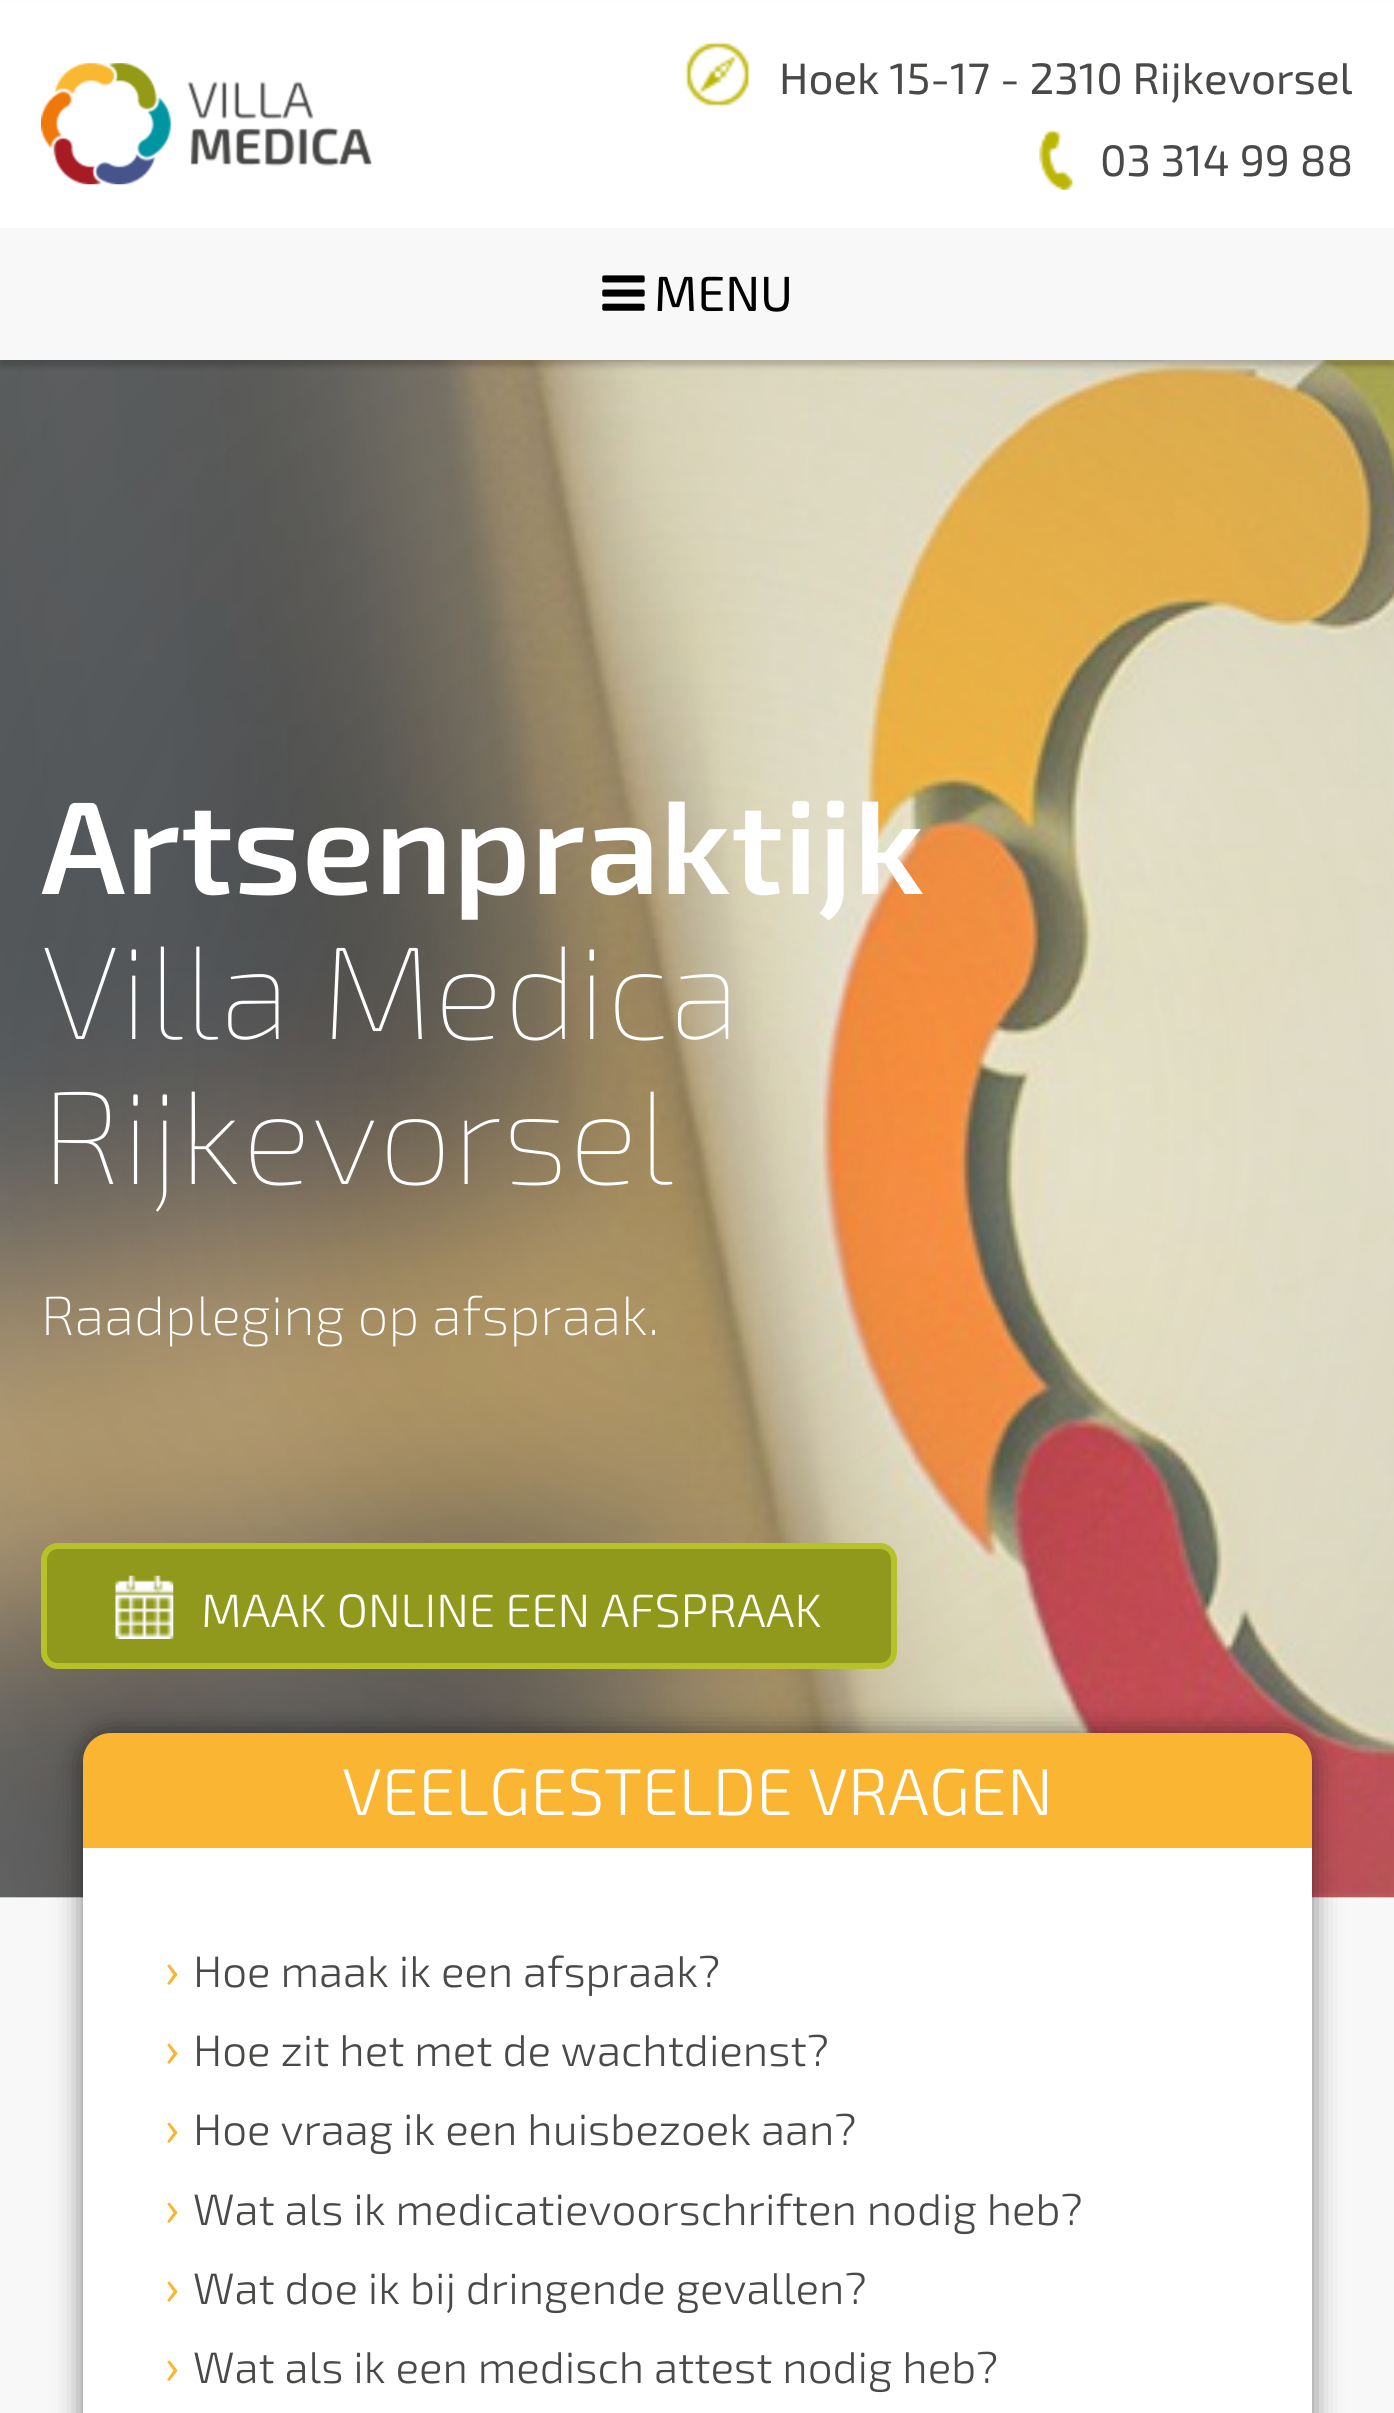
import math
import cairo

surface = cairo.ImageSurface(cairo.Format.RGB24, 1394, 2413)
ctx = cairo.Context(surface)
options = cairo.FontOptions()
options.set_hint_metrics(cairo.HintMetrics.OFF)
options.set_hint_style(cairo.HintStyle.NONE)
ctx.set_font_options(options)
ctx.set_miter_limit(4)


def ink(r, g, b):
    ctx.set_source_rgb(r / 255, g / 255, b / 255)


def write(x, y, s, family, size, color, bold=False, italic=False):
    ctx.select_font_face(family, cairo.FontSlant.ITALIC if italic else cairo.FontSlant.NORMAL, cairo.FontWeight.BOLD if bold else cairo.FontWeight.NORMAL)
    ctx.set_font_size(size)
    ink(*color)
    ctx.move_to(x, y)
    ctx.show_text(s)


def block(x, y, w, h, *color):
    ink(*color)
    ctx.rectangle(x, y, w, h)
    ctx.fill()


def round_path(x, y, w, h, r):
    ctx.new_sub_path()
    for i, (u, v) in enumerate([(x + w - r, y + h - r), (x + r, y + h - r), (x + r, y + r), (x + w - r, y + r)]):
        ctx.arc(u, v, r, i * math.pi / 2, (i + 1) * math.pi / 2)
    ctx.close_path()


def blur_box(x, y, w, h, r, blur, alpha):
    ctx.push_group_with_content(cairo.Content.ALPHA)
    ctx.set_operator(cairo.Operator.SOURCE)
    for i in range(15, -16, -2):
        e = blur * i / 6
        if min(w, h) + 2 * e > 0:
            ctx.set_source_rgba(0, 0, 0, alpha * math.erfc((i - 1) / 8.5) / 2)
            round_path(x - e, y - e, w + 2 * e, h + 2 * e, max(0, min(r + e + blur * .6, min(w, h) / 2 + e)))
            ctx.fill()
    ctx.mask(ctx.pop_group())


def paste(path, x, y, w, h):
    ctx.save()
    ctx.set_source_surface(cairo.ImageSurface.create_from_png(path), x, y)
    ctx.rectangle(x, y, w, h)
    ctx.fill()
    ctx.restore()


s1 = dict(family="Exo 2", size=44, color=(73, 73, 72))
s2 = dict(family="Exo 2", size=49.5, color=(0, 0, 0))
s3 = dict(family="Exo 2 SemiBold", size=132, color=(255, 255, 255))
s4 = dict(family="Exo 2 Thin", size=132, color=(255, 255, 255))
s5 = dict(family="Exo 2 ExtraLight", size=55, color=(255, 255, 255))
s6 = dict(family="Exo 2 Light", size=46.75, color=(255, 255, 255))
s7 = dict(family="Exo 2 Light", size=66, color=(255, 255, 255))
s8 = dict(family="Exo 2", size=49.5, color=(250, 182, 51))
s9 = dict(family="Exo 2 Light", size=44, color=(73, 73, 72))

ink(255, 255, 255)
ctx.paint()
paste("pic5.png", 0, 360, 1394, 1538)
gradient = cairo.RadialGradient(0, 0, 0, 0, 0, 1)
gradient.set_matrix(cairo.Matrix(1 / 986, 0, 0, 1 / 1089, -1 * 697 / 986, -1 * 1128 / 1089))
gradient.add_color_stop_rgba(0, 1, 1, 1, 0.2)
gradient.add_color_stop_rgba(1, 0.784, 0.784, 0.784, 0.4)
ctx.set_source(gradient)
ctx.rectangle(0, 360, 1394, 1538)
ctx.fill()
ink(0, 0, 0)
blur_box(0, 6, 1394, 360, 0, 3, 0.2)
block(0, 1, 1394, 227, 255, 255, 255)
paste("pic1.png", 41, 63, 331, 122)
paste("pic2.png", 684, 41, 67, 66)
write(779, 94, "Hoek 15-17 - 2310 Rijkevorsel", **s1)
paste("pic3.png", 1039, 129, 34, 61)
write(1100, 176, "03 314 99 88", **s1)
block(0, 228, 1394, 132, 248, 248, 248)
paste("pic4.png", 602, 275, 43, 36)
write(654, 311, "MENU", **s2)
write(41, 894, "Artsenpraktijk", **s3)
write(41, 1039, "Villa Medica", **s4)
write(41, 1184, "Rijkevorsel", **s4)
write(41, 1335, "Raadpleging op afspraak.", **s5)
ink(145, 153, 28)
round_path(44, 1546, 850, 120, 14)
ctx.fill_preserve()
ink(183, 193, 41)
ctx.set_line_width(6)
ctx.stroke()
paste("pic6.png", 115, 1575, 59, 64)
write(201, 1627, "MAAK ONLINE EEN AFSPRAAK", **s6)
block(0, 1898, 1394, 515, 248, 248, 248)
ink(0, 0, 0)
blur_box(83, 1733, 1229, 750, 28, 14, 0.5)
ink(250, 182, 51)
ctx.new_path()
ctx.move_to(111, 1733)
ctx.line_to(1284, 1733)
ctx.curve_to(1299.5, 1733, 1312, 1745.5, 1312, 1761)
ctx.line_to(1312, 1848)
ctx.line_to(83, 1848)
ctx.line_to(83, 1761)
ctx.curve_to(83, 1745.5, 95.5, 1733, 111, 1733)
ctx.close_path()
ctx.fill()
write(342, 1815, "VEELGESTELDE VRAGEN", **s7)
block(83, 1848, 1229, 565, 255, 255, 255)
write(165, 1987, "›", **s8)
write(193, 1987, "Hoe maak ik een afspraak?", **s9)
write(165, 2066, "›", **s8)
write(193, 2066, "Hoe zit het met de wachtdienst?", **s9)
write(165, 2145, "›", **s8)
write(193, 2145, "Hoe vraag ik een huisbezoek aan?", **s9)
write(165, 2225, "›", **s8)
write(193, 2225, "Wat als ik medicatievoorschriften nodig heb?", **s9)
write(165, 2304, "›", **s8)
write(193, 2304, "Wat doe ik bij dringende gevallen?", **s9)
write(165, 2383, "›", **s8)
write(193, 2383, "Wat als ik een medisch attest nodig heb?", **s9)
surface.write_to_png("screenshot.png")
